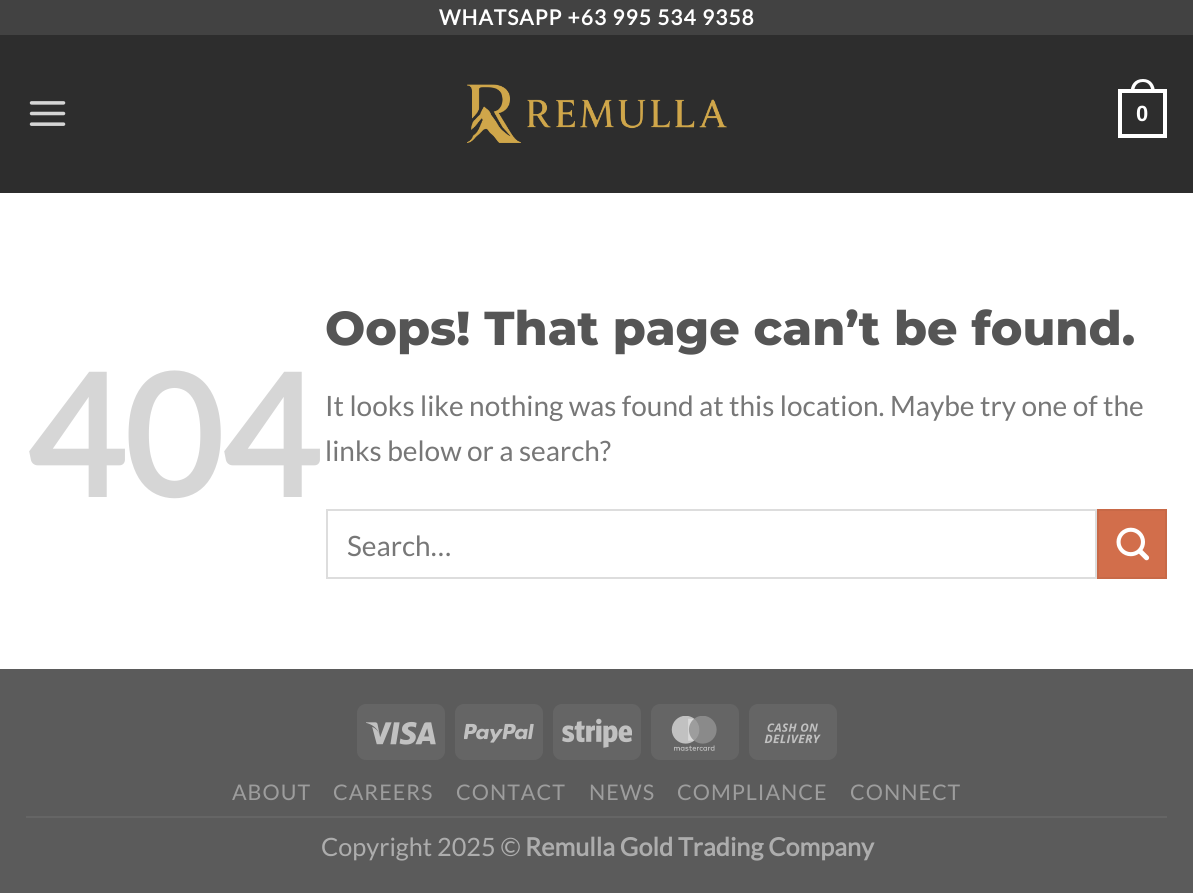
import math
import cairo

surface = cairo.ImageSurface(cairo.Format.RGB24, 1193, 893)
ctx = cairo.Context(surface)
options = cairo.FontOptions()
options.set_hint_metrics(cairo.HintMetrics.OFF)
options.set_hint_style(cairo.HintStyle.NONE)
ctx.set_font_options(options)
ctx.set_miter_limit(4)


def ink(r, g, b):
    ctx.set_source_rgb(r / 255, g / 255, b / 255)


def write(x, y, s, family, size, color, bold=False, italic=False):
    ctx.select_font_face(family, cairo.FontSlant.ITALIC if italic else cairo.FontSlant.NORMAL, cairo.FontWeight.BOLD if bold else cairo.FontWeight.NORMAL)
    ctx.set_font_size(size)
    ink(*color)
    ctx.move_to(x, y)
    ctx.show_text(s)


def write_spaced(x, y, s, letter, word):
    ctx.move_to(x, y)
    for ch in s:
        ctx.show_text(ch)
        ctx.rel_move_to(letter + word * (ch == ' '), 0)


def block(x, y, w, h, *color):
    ink(*color)
    ctx.rectangle(x, y, w, h)
    ctx.fill()


def round_path(x, y, w, h, r):
    ctx.new_sub_path()
    for i, (u, v) in enumerate([(x + w - r, y + h - r), (x + r, y + h - r), (x + r, y + r), (x + w - r, y + r)]):
        ctx.arc(u, v, r, i * math.pi / 2, (i + 1) * math.pi / 2)
    ctx.close_path()


def paste(path, x, y, w, h):
    ctx.save()
    ctx.set_source_surface(cairo.ImageSurface.create_from_png(path), x, y)
    ctx.rectangle(x, y, w, h)
    ctx.fill()
    ctx.restore()


s1 = dict(family="Liberation Sans", size=22, color=(255, 255, 255), bold=True)
s2 = dict(family="Lato", size=168, color=(214, 214, 214), bold=True)
s3 = dict(family="Montserrat ExtraBold", size=47.6, color=(85, 85, 85))
s4 = dict(family="Lato", size=28, color=(119, 119, 119))
s5 = dict(family="Lato", size=25.25, color=(173, 173, 173))
s6 = dict(family="Lato", size=25.25, color=(173, 173, 173), bold=True)

ink(255, 255, 255)
ctx.paint()
block(0, 0, 1193, 35, 66, 66, 66)
ctx.select_font_face("Lato", cairo.FontSlant.NORMAL, cairo.FontWeight.BOLD)
ctx.set_font_size(21)
ink(255, 255, 255)
write_spaced(439, 25, "WHATSAPP +63 995 534 9358", 1.05, 0)
block(0, 35, 1193, 158, 45, 45, 45)
paste("pic1.png", 29, 101, 37, 25)
paste("pic2.png", 467, 84, 260, 59)
ctx.rectangle(1120, 91, 45, 45)
ink(255, 255, 255)
ctx.set_line_width(4)
ctx.stroke()
ctx.set_fill_rule(cairo.FillRule.EVEN_ODD)
ctx.new_path()
ctx.move_to(1143, 79)
ctx.curve_to(1151, 79, 1155, 85, 1155, 93)
ctx.line_to(1130.5, 93)
ctx.curve_to(1130.5, 85, 1134.5, 79, 1143, 79)
ctx.close_path()
ctx.move_to(1143, 82)
ctx.curve_to(1149, 82, 1151.5, 87, 1151.5, 93)
ctx.line_to(1134, 93)
ctx.curve_to(1134, 87, 1136.5, 82, 1143, 82)
ctx.close_path()
ctx.fill()
write(1136, 121, "0", **s1)
write(26, 497, "404", **s2)
write(325, 345, "Oops! That page can’t be found.", **s3)
write(325, 416, "It looks like nothing was found at this location. Maybe try one of the", **s4)
write(325, 461, "links below or a search?", **s4)
ctx.rectangle(327, 510, 769, 68)
ink(221, 221, 221)
ctx.set_line_width(2)
ctx.stroke()
write(347, 556, "Search…", **s4)
ink(210, 110, 75)
ctx.rectangle(1098, 510, 68, 68)
ctx.fill_preserve()
ink(200, 105, 71)
ctx.stroke()
paste("pic3.png", 1116, 527, 34, 34)
block(0, 669, 1193, 224, 91, 91, 91)
ink(101, 101, 101)
round_path(357, 704, 88, 56, 9)
ctx.fill()
paste("pic4.png", 366, 721, 70, 24)
round_path(455, 704, 88, 56, 9)
ctx.fill()
paste("pic5.png", 464, 723, 70, 20)
round_path(553, 704, 88, 56, 9)
ctx.fill()
paste("pic6.png", 562, 718, 70, 30)
round_path(651, 704, 88, 56, 9)
ctx.fill()
paste("pic7.png", 671, 716, 46, 35)
round_path(749, 704, 88, 56, 9)
ctx.fill()
paste("pic8.png", 764, 723, 57, 21)
block(26, 816, 1141, 2, 101, 101, 101)
ctx.set_font_size(21.5)
ink(157, 157, 157)
write_spaced(232, 800, "ABOUT", 1, 0)
write_spaced(333, 800, "CAREERS", 1, 0)
write_spaced(456, 800, "CONTACT", 1, 0)
write_spaced(589, 800, "NEWS", 1, 0)
write_spaced(677, 800, "COMPLIANCE", 1, 0)
write_spaced(850, 800, "CONNECT", 1, 0)
write(321, 856, "Copyright 2025 ©", **s5)
write(525, 856, "Remulla Gold Trading Company", **s6)
surface.write_to_png("screenshot.png")
